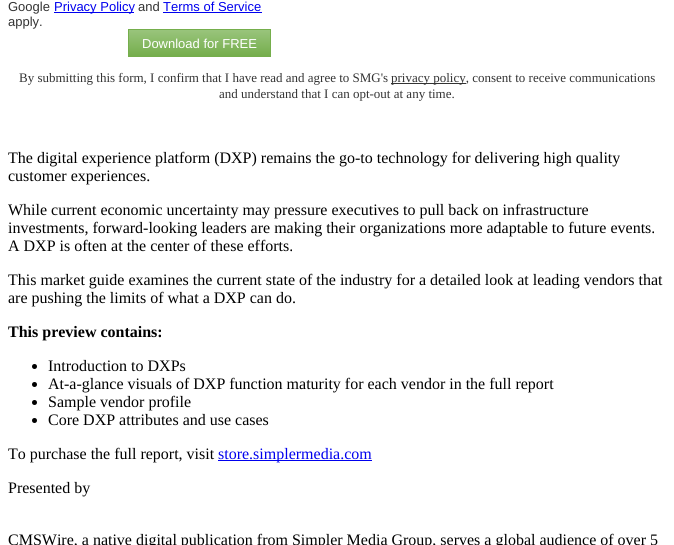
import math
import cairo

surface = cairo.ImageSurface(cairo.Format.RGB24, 674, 545)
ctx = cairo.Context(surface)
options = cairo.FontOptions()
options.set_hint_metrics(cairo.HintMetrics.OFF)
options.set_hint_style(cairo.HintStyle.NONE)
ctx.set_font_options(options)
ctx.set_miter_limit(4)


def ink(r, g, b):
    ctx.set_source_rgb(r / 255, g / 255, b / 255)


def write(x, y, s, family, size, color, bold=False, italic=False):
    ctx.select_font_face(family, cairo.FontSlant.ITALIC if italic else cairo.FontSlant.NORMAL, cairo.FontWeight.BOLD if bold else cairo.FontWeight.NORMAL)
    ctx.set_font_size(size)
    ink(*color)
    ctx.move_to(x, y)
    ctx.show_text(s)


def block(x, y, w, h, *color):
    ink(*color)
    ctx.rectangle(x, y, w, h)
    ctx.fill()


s1 = dict(family="Liberation Sans", size=13, color=(51, 51, 51))
s2 = dict(family="Liberation Sans", size=13, color=(0, 0, 238))
s3 = dict(family="Liberation Sans", size=13, color=(255, 255, 255))
s4 = dict(family="Liberation Serif", size=13, color=(51, 51, 51))
s5 = dict(family="Liberation Serif", size=16, color=(0, 0, 0))
s6 = dict(family="Liberation Serif", size=16, color=(0, 0, 0), bold=True)
s7 = dict(family="Liberation Serif", size=16, color=(0, 0, 238))

ink(255, 255, 255)
ctx.paint()
write(8, 11, "Google", **s1)
block(54, 12, 80, 1, 0, 0, 238)
write(54, 11, "Privacy Policy", **s2)
write(138, 11, "and", **s1)
write(163, 11, "Terms of Service", **s2)
block(163, 12, 99, 1, 0, 0, 238)
write(8, 26, "apply.", **s1)
gradient = cairo.LinearGradient(200, 30, 200, 56)
gradient.add_color_stop_rgba(0, 0.6, 0.769, 0.486, 1)
gradient.add_color_stop_rgba(1, 0.459, 0.682, 0.298, 1)
ctx.set_source(gradient)
ctx.rectangle(129, 30, 141, 26)
ctx.fill()
ctx.rectangle(128.5, 29.5, 142, 27)
ink(117, 174, 76)
ctx.set_line_width(1)
ctx.stroke()
write(142, 48, "Download for FREE", **s3)
write(19, 82, "By submitting this form, I confirm that I have read and agree to SMG's", **s4)
block(391, 83, 75, 1, 51, 51, 51)
write(391, 82, "privacy policy, consent to receive communications", **s4)
write(219, 98, "and understand that I can opt-out at any time.", **s4)
write(8, 163, "The digital experience platform (DXP) remains the go-to technology for delivering high quality", **s5)
write(8, 181, "customer experiences.", **s5)
write(8, 215, "While current economic uncertainty may pressure executives to pull back on infrastructure", **s5)
write(8, 233, "investments, forward-looking leaders are making their organizations more adaptable to future events.", **s5)
write(8, 251, "A DXP is often at the center of these efforts.", **s5)
write(8, 285, "This market guide examines the current state of the industry for a detailed look at leading vendors that", **s5)
write(8, 303, "are pushing the limits of what a DXP can do.", **s5)
write(8, 337, "This preview contains:", **s6)
ctx.new_path()
ctx.arc(34.5, 366.5, 2.5, 0, 2 * math.pi)
ctx.fill()
write(48, 371, "Introduction to DXPs", **s5)
ctx.new_path()
ctx.arc(34.5, 384.5, 2.5, 0, 2 * math.pi)
ctx.fill()
write(48, 389, "At-a-glance visuals of DXP function maturity for each vendor in the full report", **s5)
ctx.new_path()
ctx.arc(34.5, 402.5, 2.5, 0, 2 * math.pi)
ctx.fill()
write(48, 407, "Sample vendor profile", **s5)
ctx.new_path()
ctx.arc(34.5, 420.5, 2.5, 0, 2 * math.pi)
ctx.fill()
write(48, 425, "Core DXP attributes and use cases", **s5)
write(8, 459, "To purchase the full report, visit", **s5)
block(218, 460, 154, 1, 0, 0, 238)
write(218, 459, "store.simplermedia.com", **s7)
write(8, 493, "Presented by", **s5)
write(8, 545, "CMSWire, a native digital publication from Simpler Media Group, serves a global audience of over 5", **s5)
surface.write_to_png("screenshot.png")
